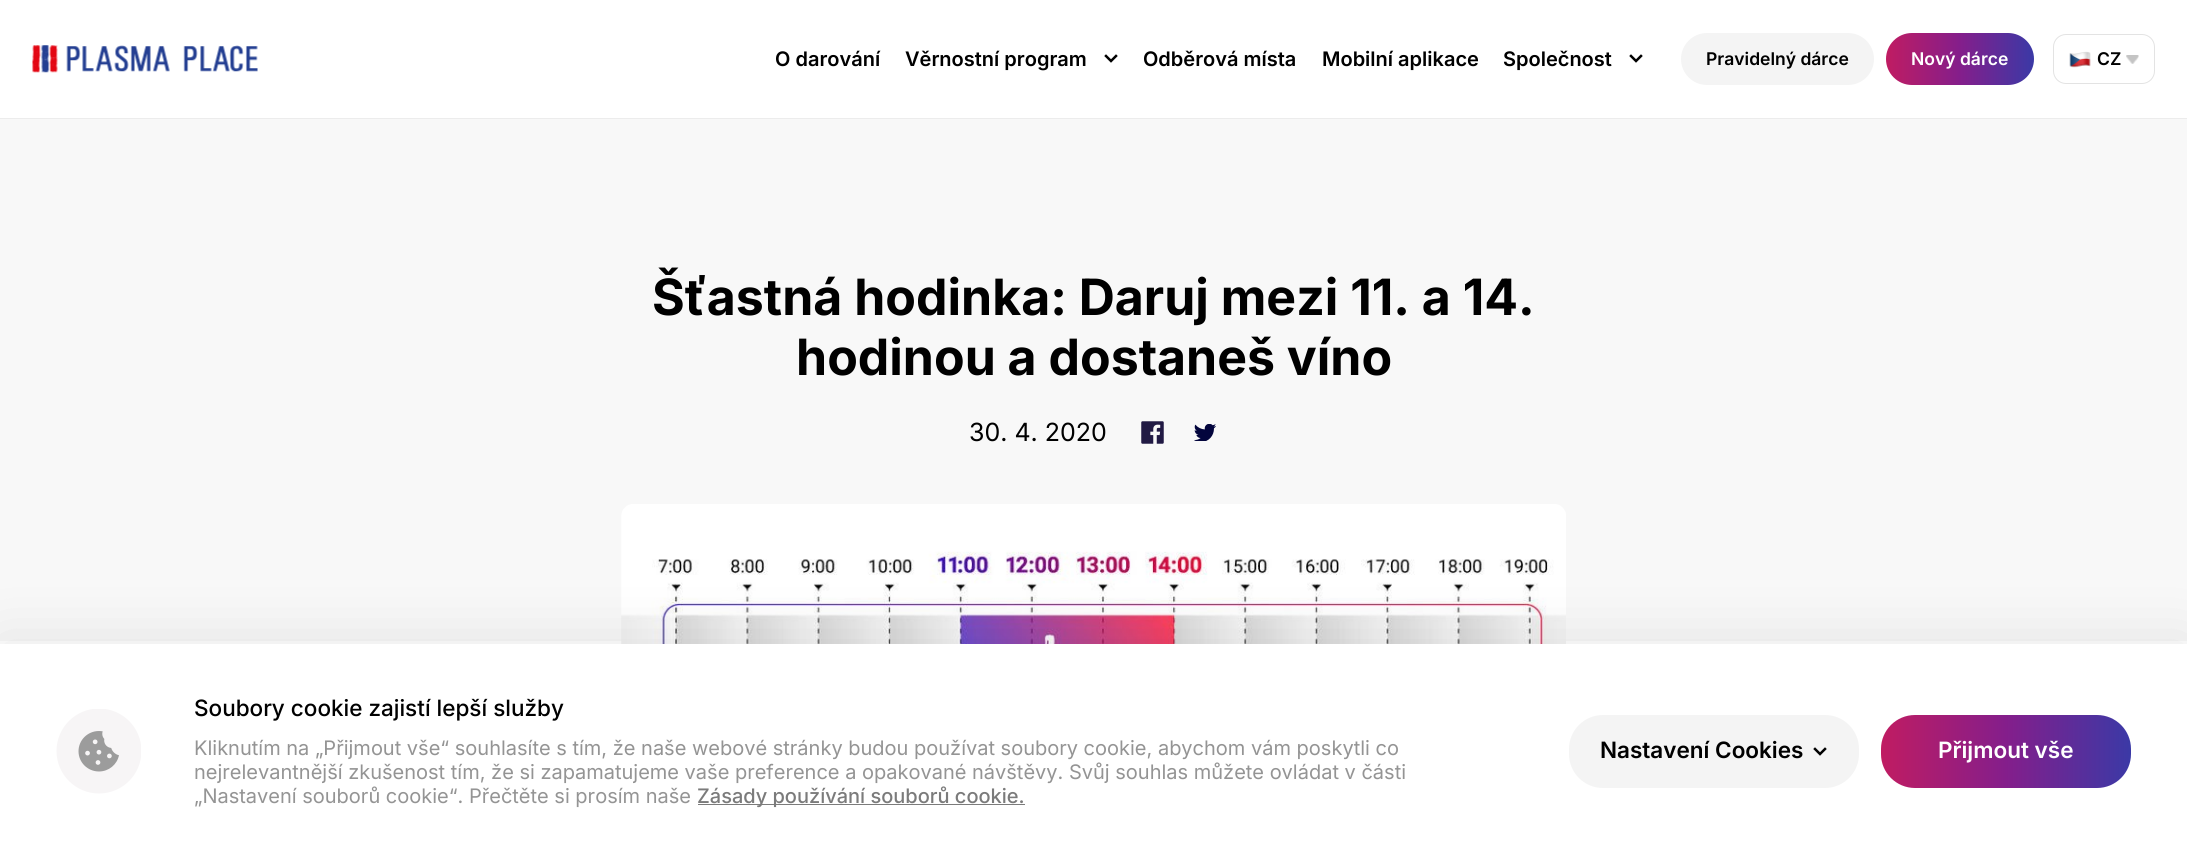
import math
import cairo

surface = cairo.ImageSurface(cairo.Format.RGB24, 2187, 857)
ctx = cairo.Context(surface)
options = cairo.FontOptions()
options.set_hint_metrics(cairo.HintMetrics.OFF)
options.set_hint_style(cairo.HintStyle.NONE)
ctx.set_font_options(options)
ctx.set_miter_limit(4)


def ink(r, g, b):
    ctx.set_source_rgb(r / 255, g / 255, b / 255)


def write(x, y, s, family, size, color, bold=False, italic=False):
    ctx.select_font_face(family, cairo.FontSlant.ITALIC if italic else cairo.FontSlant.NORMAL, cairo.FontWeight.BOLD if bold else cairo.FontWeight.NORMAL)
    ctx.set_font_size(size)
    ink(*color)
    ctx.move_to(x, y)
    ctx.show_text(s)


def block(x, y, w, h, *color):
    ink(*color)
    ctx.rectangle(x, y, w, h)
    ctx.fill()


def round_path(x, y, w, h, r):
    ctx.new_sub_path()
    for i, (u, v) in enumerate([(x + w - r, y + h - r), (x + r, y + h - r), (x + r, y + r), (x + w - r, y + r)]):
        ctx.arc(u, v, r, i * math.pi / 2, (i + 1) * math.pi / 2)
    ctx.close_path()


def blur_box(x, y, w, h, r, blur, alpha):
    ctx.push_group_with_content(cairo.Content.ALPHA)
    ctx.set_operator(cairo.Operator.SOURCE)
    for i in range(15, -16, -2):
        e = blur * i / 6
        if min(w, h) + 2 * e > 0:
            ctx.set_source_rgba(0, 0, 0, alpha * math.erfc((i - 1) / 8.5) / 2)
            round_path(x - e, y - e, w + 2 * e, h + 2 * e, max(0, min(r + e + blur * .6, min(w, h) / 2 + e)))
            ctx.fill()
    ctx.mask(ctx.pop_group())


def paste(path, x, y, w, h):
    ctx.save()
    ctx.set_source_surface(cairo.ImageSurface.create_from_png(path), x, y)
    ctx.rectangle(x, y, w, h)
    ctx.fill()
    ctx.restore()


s1 = dict(family="Inter SemiBold", size=20, color=(0, 0, 0))
s2 = dict(family="Inter SemiBold", size=17.5, color=(0, 0, 0))
s3 = dict(family="Inter SemiBold", size=17.5, color=(255, 255, 255))
s4 = dict(family="Inter", size=50, color=(0, 0, 0), bold=True)
s5 = dict(family="Inter", size=25, color=(0, 0, 0))
s6 = dict(family="Inter Medium", size=22.5, color=(0, 0, 0))
s7 = dict(family="Inter", size=20, color=(148, 148, 148))
s8 = dict(family="Inter Medium", size=20, color=(123, 123, 123))
s9 = dict(family="Inter SemiBold", size=22.5, color=(0, 0, 0))
s10 = dict(family="Inter SemiBold", size=22.5, color=(255, 255, 255))

ink(255, 255, 255)
ctx.paint()
block(0, 118, 2187, 1, 236, 236, 236)
paste("pic1.png", 32, 45, 226, 28)
write(775, 66, "O darování", **s1)
write(905, 66, "Věrnostní program", **s1)
ctx.new_path()
ctx.move_to(1106, 56)
ctx.line_to(1111, 61)
ctx.line_to(1116, 56)
ctx.set_line_width(2.5)
ctx.set_line_cap(cairo.LineCap.SQUARE)
ctx.stroke()
write(1143, 66, "Odběrová místa", **s1)
write(1322, 66, "Mobilní aplikace", **s1)
write(1503, 66, "Společnost", **s1)
ctx.new_path()
ctx.move_to(1631, 56)
ctx.line_to(1636, 61)
ctx.line_to(1641, 56)
ctx.stroke()
ink(244, 244, 244)
round_path(1681, 33, 193, 52, 26)
ctx.fill()
write(1706, 65, "Pravidelný dárce", **s2)
gradient = cairo.LinearGradient(1886, 59, 2034, 59)
gradient.add_color_stop_rgba(0, 0.753, 0.11, 0.384, 1)
gradient.add_color_stop_rgba(0.5, 0.518, 0.118, 0.545, 1)
gradient.add_color_stop_rgba(1, 0.231, 0.224, 0.651, 1)
ctx.set_source(gradient)
round_path(1886, 33, 148, 52, 26)
ctx.fill()
write(1911, 65, "Nový dárce", **s3)
round_path(2053.5, 34.5, 101, 49, 12.5)
ink(227, 227, 227)
ctx.set_line_width(1)
ctx.set_line_cap(cairo.LineCap.BUTT)
ctx.stroke()
paste("pic2.png", 2069, 51, 22, 17)
paste("pic3.png", 2126, 55, 13, 9)
write(2097, 65, "CZ", **s2)
block(0, 119, 2187, 522, 248, 248, 248)
write(652, 315, "Šťastná hodinka: Daruj mezi 11. a 14.", **s4)
write(796, 375, "hodinou a dostaneš víno", **s4)
write(969, 441, "30. 4. 2020", **s5)
paste("pic4.png", 1141, 421, 23, 23)
paste("pic5.png", 1194, 424, 22, 17)
paste("pic6.png", 621, 504, 945, 140)
ink(0, 0, 0)
blur_box(0, 644, 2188, 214, 0, 31, 0.1)
block(0, 644, 2187, 213, 255, 255, 255)
paste("pic7.png", 56, 709, 85, 85)
write(194, 716, "Soubory cookie zajistí lepší služby", **s6)
write(194, 755, "Kliknutím na „Přijmout vše“ souhlasíte s tím, že naše webové stránky budou používat soubory cookie, abychom vám poskytli co", **s7)
write(194, 779, "nejrelevantnější zkušenost tím, že si zapamatujeme vaše preference a opakované návštěvy. Svůj souhlas můžete ovládat v části", **s7)
write(194, 803, "„Nastavení souborů cookie“. Přečtěte si prosím naše", **s7)
block(698, 804, 327, 1, 123, 123, 123)
write(697, 803, "Zásady používání souborů cookie.", **s8)
ink(244, 244, 244)
round_path(1569, 715, 290, 73, 34)
ctx.fill()
write(1600, 758, "Nastavení Cookies", **s9)
ctx.new_path()
ctx.move_to(1815, 749)
ctx.line_to(1820, 754)
ctx.line_to(1825, 749)
ctx.set_line_width(2.5)
ctx.set_line_cap(cairo.LineCap.SQUARE)
ctx.stroke()
gradient = cairo.LinearGradient(1881, 751, 2131, 751)
gradient.add_color_stop_rgba(0, 0.753, 0.11, 0.384, 1)
gradient.add_color_stop_rgba(0.5, 0.518, 0.118, 0.545, 1)
gradient.add_color_stop_rgba(1, 0.231, 0.224, 0.651, 1)
ctx.set_source(gradient)
round_path(1881, 715, 250, 73, 34)
ctx.fill()
write(1938, 758, "Přijmout vše", **s10)
surface.write_to_png("screenshot.png")
